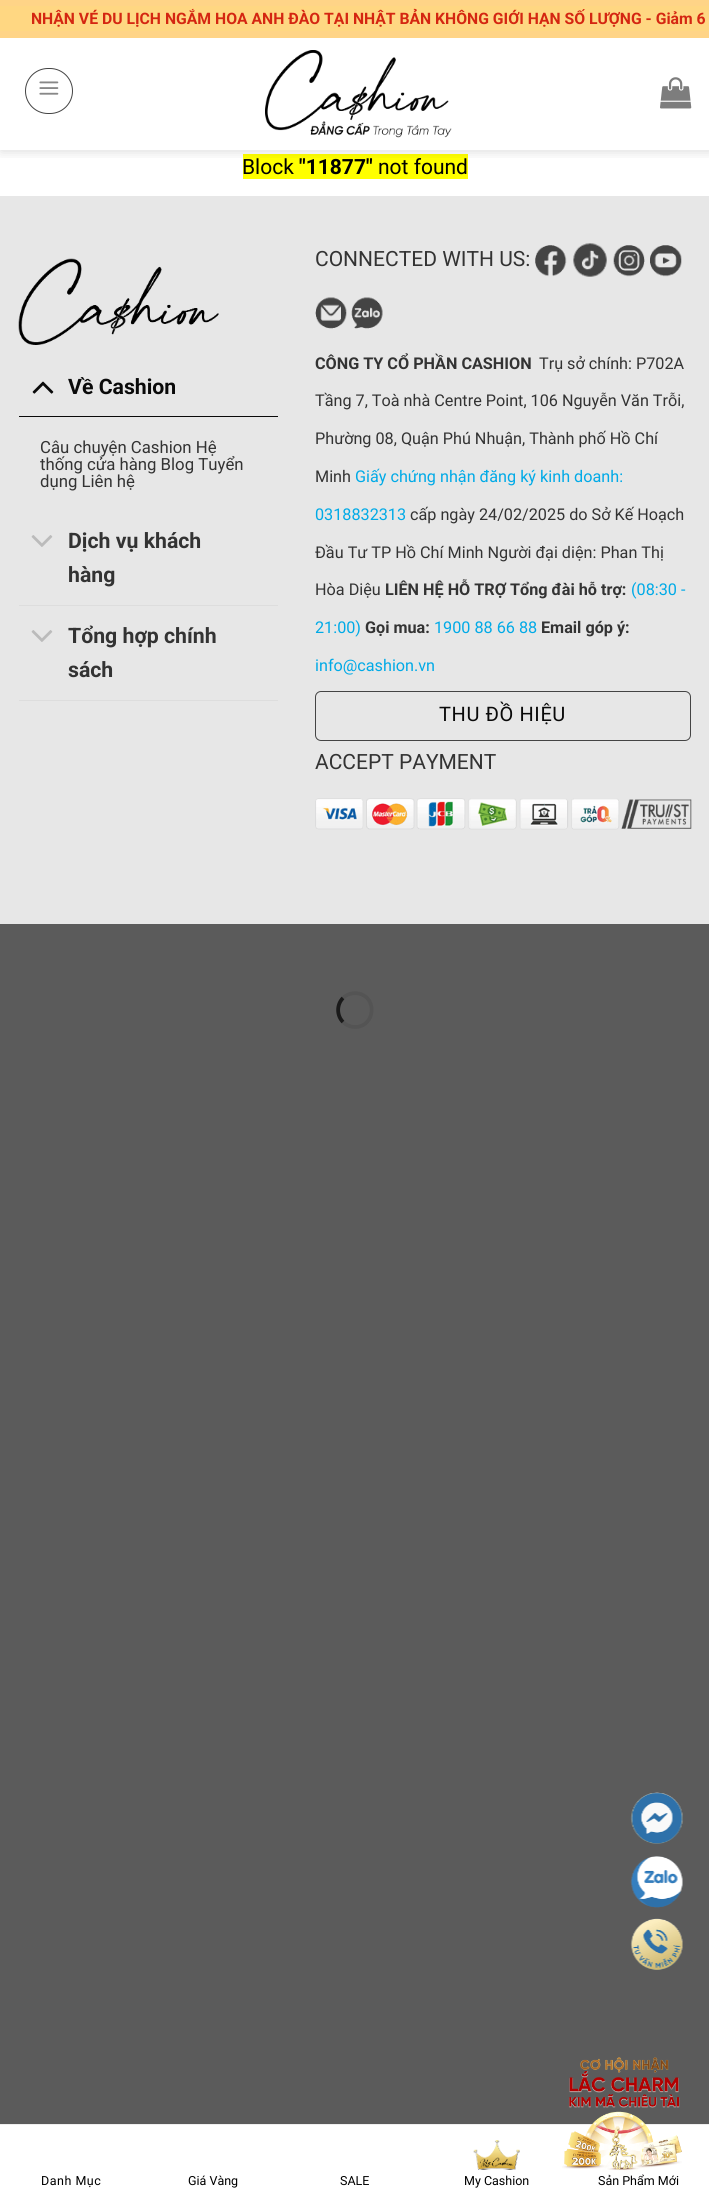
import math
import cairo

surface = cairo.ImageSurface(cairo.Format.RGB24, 709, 2202)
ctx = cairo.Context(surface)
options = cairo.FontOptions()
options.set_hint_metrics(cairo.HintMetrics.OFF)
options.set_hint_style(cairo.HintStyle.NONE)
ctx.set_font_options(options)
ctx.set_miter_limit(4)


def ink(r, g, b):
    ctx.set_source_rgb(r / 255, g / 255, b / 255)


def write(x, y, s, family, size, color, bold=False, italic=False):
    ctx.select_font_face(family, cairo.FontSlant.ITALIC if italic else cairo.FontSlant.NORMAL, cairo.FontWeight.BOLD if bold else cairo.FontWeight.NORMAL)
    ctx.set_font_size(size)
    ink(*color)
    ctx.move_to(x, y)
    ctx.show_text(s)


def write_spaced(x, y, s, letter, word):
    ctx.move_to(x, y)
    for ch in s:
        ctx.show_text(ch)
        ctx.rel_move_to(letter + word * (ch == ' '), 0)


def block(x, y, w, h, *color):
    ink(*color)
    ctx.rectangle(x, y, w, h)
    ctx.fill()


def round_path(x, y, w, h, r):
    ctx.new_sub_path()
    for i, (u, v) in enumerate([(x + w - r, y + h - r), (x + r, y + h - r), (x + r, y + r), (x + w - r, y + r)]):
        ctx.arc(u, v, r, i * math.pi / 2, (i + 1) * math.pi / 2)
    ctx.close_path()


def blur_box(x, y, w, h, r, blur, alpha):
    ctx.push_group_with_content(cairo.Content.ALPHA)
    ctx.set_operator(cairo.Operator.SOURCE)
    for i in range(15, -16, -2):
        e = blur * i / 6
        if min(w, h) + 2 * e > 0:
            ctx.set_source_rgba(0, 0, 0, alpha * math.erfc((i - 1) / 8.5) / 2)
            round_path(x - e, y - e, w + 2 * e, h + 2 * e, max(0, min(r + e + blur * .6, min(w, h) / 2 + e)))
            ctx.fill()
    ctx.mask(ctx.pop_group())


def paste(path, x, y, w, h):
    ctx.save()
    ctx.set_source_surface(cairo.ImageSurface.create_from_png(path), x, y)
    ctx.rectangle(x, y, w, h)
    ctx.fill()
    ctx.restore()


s1 = dict(family="Roboto", size=15.75, color=(212, 38, 17), bold=True)
s2 = dict(family="Roboto", size=21, color=(0, 0, 0))
s3 = dict(family="Roboto", size=21, color=(0, 0, 0), bold=True)
s4 = dict(family="Roboto", size=21.25, color=(10, 10, 10), bold=True)
s5 = dict(family="Roboto", size=16.75, color=(51, 51, 51))
s6 = dict(family="Roboto", size=21.25, color=(51, 51, 51), bold=True)
s7 = dict(family="Roboto", size=21, color=(51, 51, 51))
s8 = dict(family="Roboto", size=16.2, color=(51, 51, 51), bold=True)
s9 = dict(family="Roboto", size=16.2, color=(51, 51, 51))
s10 = dict(family="Roboto", size=16.2, color=(0, 170, 231))
s11 = dict(family="Roboto", size=12.5, color=(0, 0, 0))

ink(91, 91, 91)
ctx.paint()
block(0, 38, 709, 158, 255, 255, 255)
block(243, 154, 225, 25, 255, 255, 0)
ctx.save()
ctx.rectangle(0, 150, 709, 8)
ctx.clip()
ink(0, 0, 0)
blur_box(1, 1, 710, 150, 0, 6, 0.15)
ctx.restore()
block(0, 0, 709, 38, 255, 212, 135)
block(0, 6, 709, 25, 255, 215, 130)
write(31, 24, "NHẬN VÉ DU LỊCH NGẮM HOA ANH ĐÀO TẠI NHẬT BẢN KHÔNG GIỚI HẠN SỐ LƯỢNG - Giảm 6", **s1)
round_path(25.5, 68.5, 47, 45, 22.5)
ink(68, 68, 68)
ctx.set_line_width(1)
ctx.stroke()
paste("pic1.png", 39, 81, 20, 14)
paste("pic2.png", 265, 50, 187, 88)
paste("pic3.png", 660, 77, 32, 32)
write(242, 174, "Block", **s2)
write(299, 174, "\"11877\"", **s3)
write(378, 174, "not found", **s2)
block(0, 196, 709, 728, 231, 231, 231)
paste("pic4.png", 18, 258, 201, 87)
block(19, 416, 259, 1, 10, 10, 10)
paste("pic5.png", 32, 381, 22, 13)
write(68, 394, "Về Cashion", **s4)
write(40, 453, "Câu chuyện Cashion Hệ", **s5)
write(40, 470, "thống cửa hàng Blog Tuyển", **s5)
write(40, 487, "dụng Liên hệ", **s5)
block(19, 605, 259, 1, 221, 221, 221)
paste("pic6.png", 31, 535, 22, 12)
write(68, 548, "Dịch vụ khách", **s6)
write(68, 582, "hàng", **s6)
block(19, 700, 259, 1, 221, 221, 221)
paste("pic6.png", 31, 630, 22, 12)
write(68, 643, "Tổng hợp chính", **s6)
write(68, 677, "sách", **s6)
paste("pic7.png", 573, 243, 34, 34)
paste("pic8.png", 613, 245, 32, 32)
paste("pic9.png", 650, 245, 32, 32)
paste("pic10.png", 315, 297, 32, 32)
paste("pic11.png", 535, 245, 32, 32)
paste("pic12.png", 351, 297, 32, 32)
write(315, 266, "CONNECTED WITH US:", **s7)
write(315, 369, "CÔNG TY CỔ PHẦN CASHION", **s8)
write(539, 369, "Trụ sở chính: P702A", **s9)
write(315, 406, "Tầng 7, Toà nhà Centre Point, 106 Nguyễn Văn Trỗi,", **s9)
write(315, 444, "Phường 08, Quận Phú Nhuận, Thành phố Hồ Chí", **s9)
write(315, 482, "Minh", **s9)
write(355, 482, "Giấy chứng nhận đăng ký kinh doanh:", **s10)
write(315, 520, "0318832313", **s10)
write(410, 520, "cấp ngày 24/02/2025 do Sở Kế Hoạch", **s9)
write(315, 558, "Đầu Tư TP Hồ Chí Minh Người đại diện: Phan Thị", **s9)
write(315, 595, "Hòa Diệu", **s9)
write(385, 595, "LIÊN HỆ HỖ TRỢ", **s8)
write(510, 595, "Tổng đài hỗ trợ:", **s8)
write(631, 595, "(08:30 -", **s10)
write(315, 633, "21:00)", **s10)
write(365, 633, "Gọi mua:", **s8)
write(434, 633, "1900 88 66 88", **s10)
write(541, 633, "Email góp ý:", **s8)
write(315, 671, "info@cashion.vn", **s10)
round_path(315.5, 691.5, 375, 49, 5.5)
ink(68, 68, 68)
ctx.stroke()
ctx.set_font_size(20)
ink(10, 10, 10)
write_spaced(439, 721, "THU ĐỒ HIỆU", 0.6, 0)
write(315, 769, "ACCEPT PAYMENT", **s7)
paste("pic13.png", 315, 798, 377, 32)
block(0, 2125, 709, 77, 255, 255, 255)
block(0, 2124, 709, 1, 238, 238, 238)
write(598, 2185, "Sản Phẩm Mới", **s11)
paste("pic14.png", 562, 2057, 120, 120)
ctx.new_path()
ctx.move_to(343, 998)
ctx.curve_to(347, 994, 353, 992.5, 358.5, 993.5)
ctx.curve_to(378, 997.5, 375, 1027, 355, 1027)
ctx.curve_to(350.5, 1027, 346, 1025, 343, 1022)
ink(84, 84, 84)
ctx.set_line_width(3.8)
ctx.stroke()
ctx.new_path()
ctx.move_to(343, 1022)
ctx.curve_to(336.5, 1015.5, 336.5, 1004.5, 343, 998)
ink(26, 26, 26)
ctx.stroke()
paste("pic15.png", 630, 1792, 53, 52)
paste("pic16.png", 630, 1856, 53, 52)
paste("pic17.png", 630, 1918, 53, 52)
ink(0, 0, 0)
write_spaced(41, 2185, "Danh Mục", 0.5, 0)
write(188, 2185, "Giá Vàng", **s11)
write(340, 2185, "SALE", **s11)
paste("pic18.png", 473, 2140, 47, 30)
write(464, 2185, "My Cashion", **s11)
surface.write_to_png("screenshot.png")
